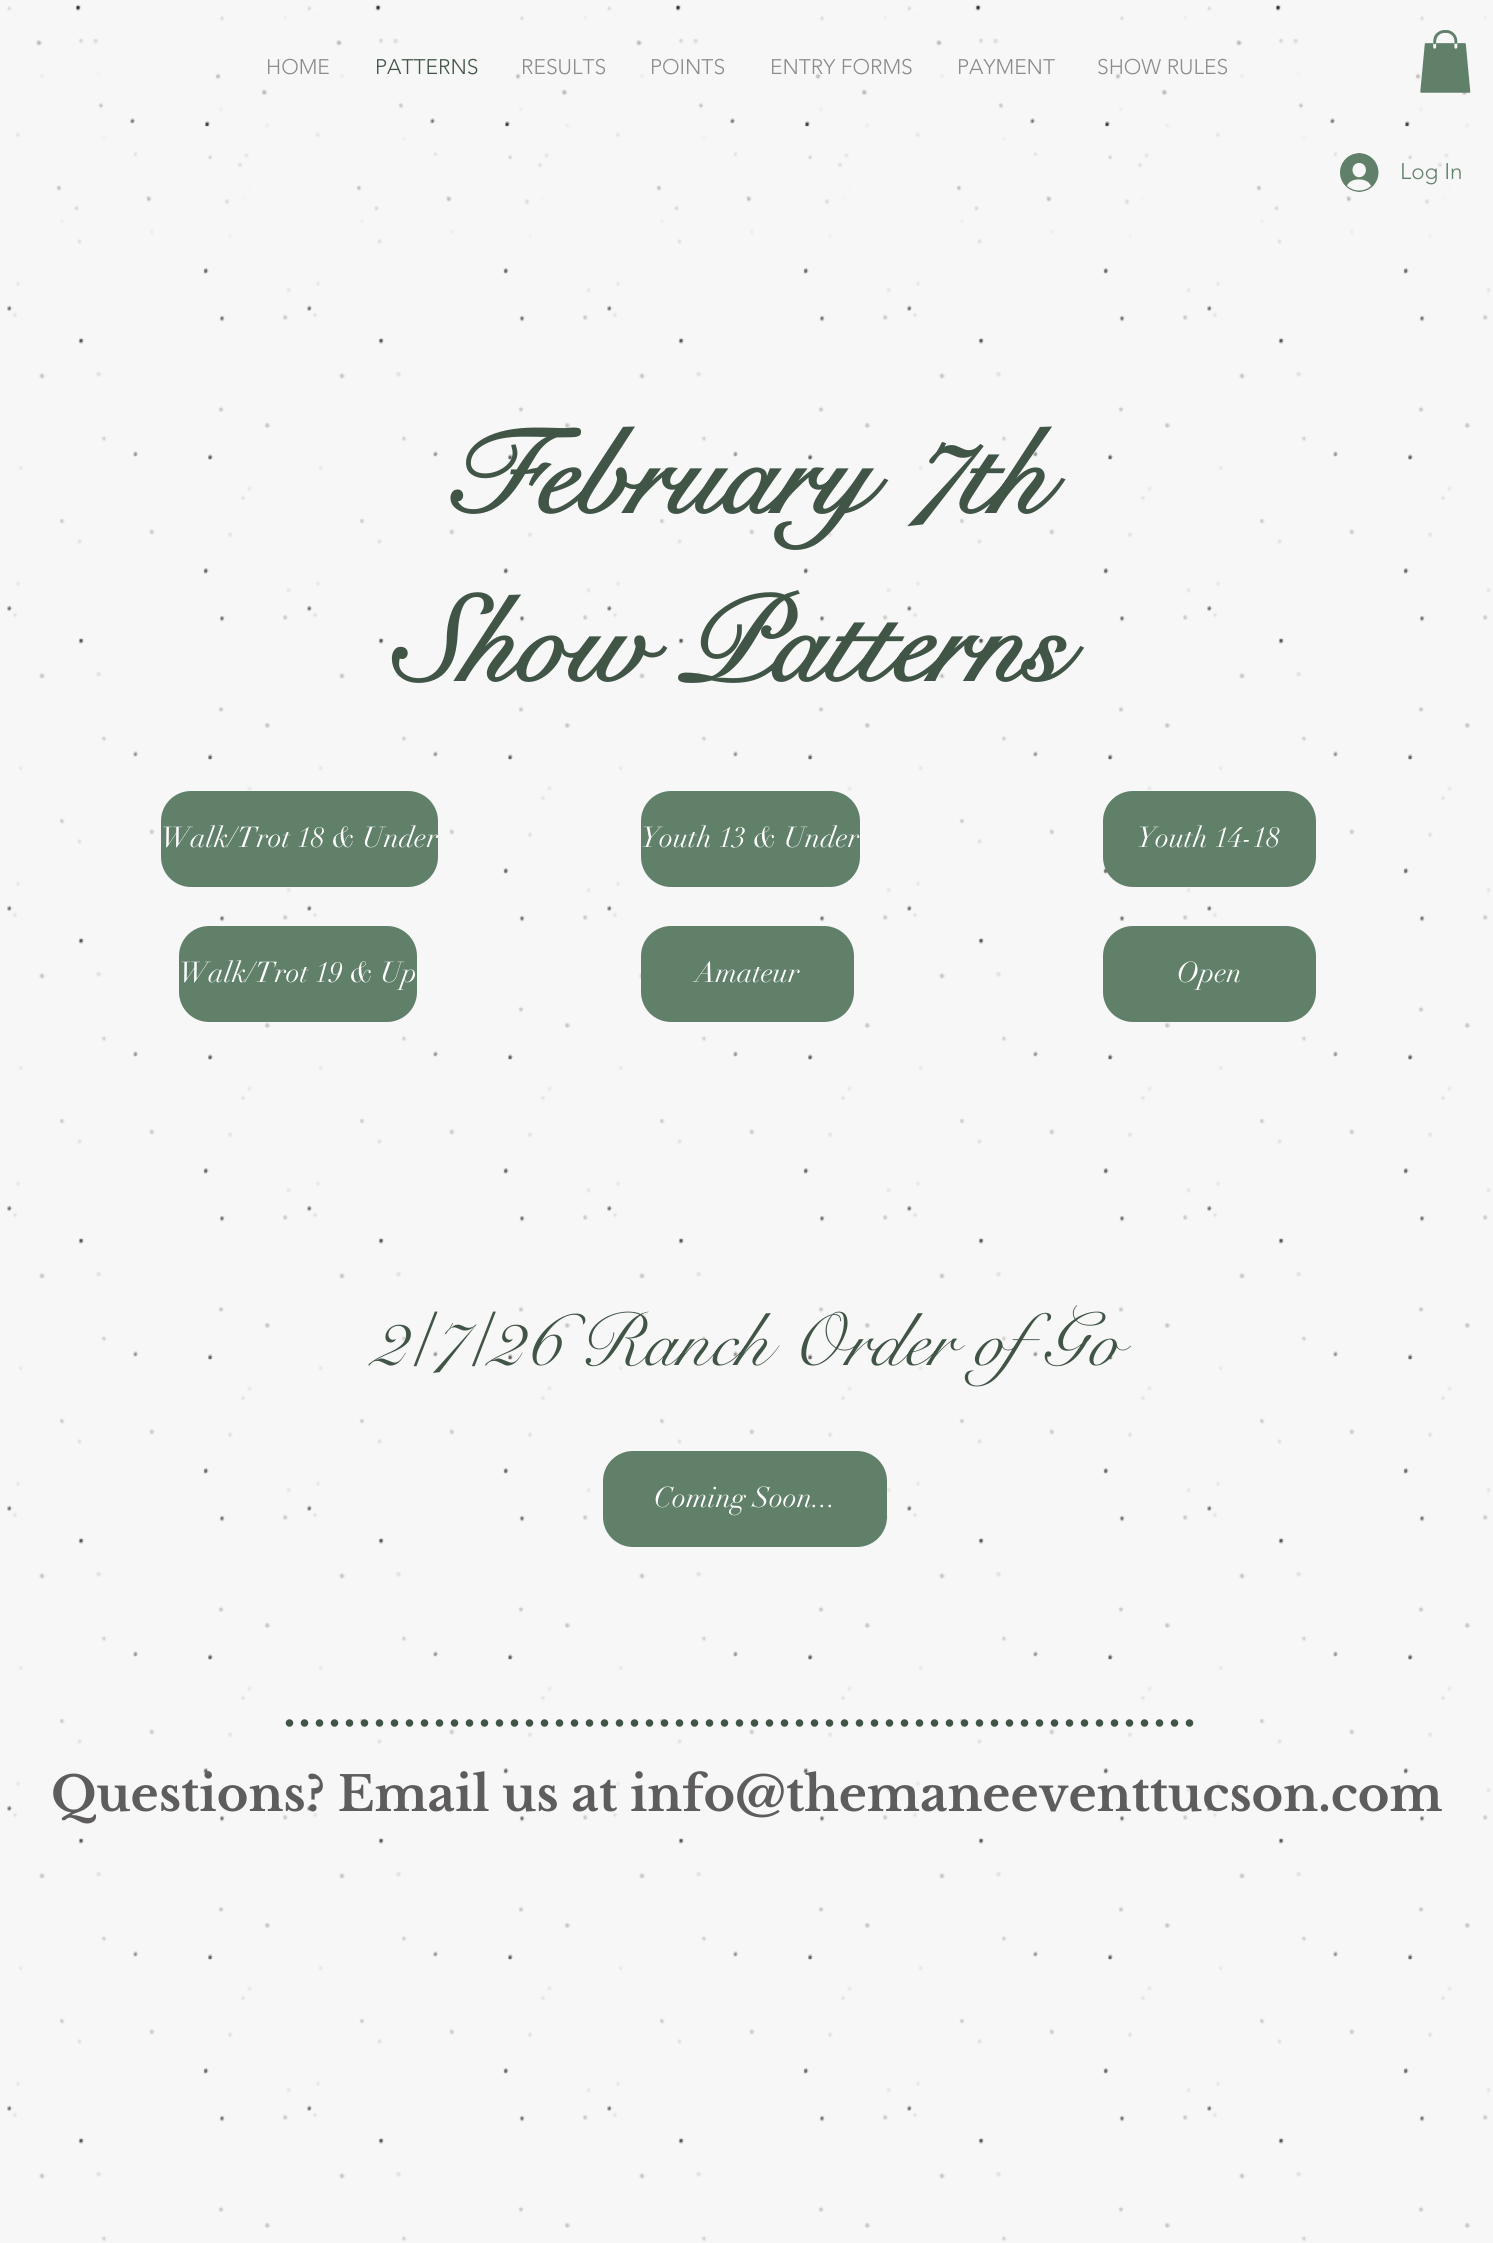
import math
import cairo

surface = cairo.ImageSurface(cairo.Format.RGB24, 1493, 2243)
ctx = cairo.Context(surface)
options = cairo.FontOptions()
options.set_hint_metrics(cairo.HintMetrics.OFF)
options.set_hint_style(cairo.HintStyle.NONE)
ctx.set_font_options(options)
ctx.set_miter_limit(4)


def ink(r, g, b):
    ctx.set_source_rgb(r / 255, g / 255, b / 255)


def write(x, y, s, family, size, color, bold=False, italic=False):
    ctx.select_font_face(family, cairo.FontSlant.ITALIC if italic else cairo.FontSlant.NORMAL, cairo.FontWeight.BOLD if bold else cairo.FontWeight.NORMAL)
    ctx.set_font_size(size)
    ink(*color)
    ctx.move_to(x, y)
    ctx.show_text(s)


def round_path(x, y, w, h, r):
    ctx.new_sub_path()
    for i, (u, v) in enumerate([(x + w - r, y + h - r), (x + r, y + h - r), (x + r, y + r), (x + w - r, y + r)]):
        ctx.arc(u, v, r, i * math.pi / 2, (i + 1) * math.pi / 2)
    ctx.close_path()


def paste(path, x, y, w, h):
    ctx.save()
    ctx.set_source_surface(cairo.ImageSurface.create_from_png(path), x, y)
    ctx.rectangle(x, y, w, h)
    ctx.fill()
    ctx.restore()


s1 = dict(family="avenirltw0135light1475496 Light", size=21, color=(140, 139, 137))
s2 = dict(family="avenirltw0135light1475496 Light", size=21, color=(65, 85, 71))
s3 = dict(family="avenirltw0135light1475496 Light", size=22.5, color=(97, 128, 106))
s4 = dict(family="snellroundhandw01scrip", size=120, color=(65, 85, 71), bold=True)
s5 = dict(family="didot", size=28.5, color=(255, 255, 255))
s6 = dict(family="snellroundhandw01scrip", size=75, color=(65, 85, 71))
s7 = dict(family="Libre Baskerville", size=48, color=(94, 92, 92), bold=True)

ink(247, 247, 247)
ctx.paint()
paste("pic1.png", 7, 5, 1484, 2237)
ctx.set_source_rgba(0.969, 0.969, 0.969, 0.8)
ctx.rectangle(7, 5, 1481, 231)
ctx.fill()
paste("pic2.png", 16, 4, 1452, 207)
write(266, 74, "HOME", **s1)
write(375, 74, "PATTERNS", **s2)
write(521, 74, "RESULTS", **s1)
write(650, 74, "POINTS", **s1)
write(770, 74, "ENTRY FORMS", **s1)
write(957, 74, "PAYMENT", **s1)
write(1097, 74, "SHOW RULES", **s1)
paste("pic3.png", 1420, 30, 51, 63)
paste("pic4.png", 1340, 153, 39, 39)
write(1400, 179, "Log In", **s3)
write(443, 513, "February 7th", **s4)
write(395, 681, "Show Patterns", **s4)
ink(97, 128, 106)
round_path(161, 791, 277, 96, 30)
ctx.fill()
write(161, 847, "Walk/Trot 18 & Under", **s5)
ink(97, 128, 106)
round_path(641, 791, 219, 96, 30)
ctx.fill()
write(641, 847, "Youth 13 & Under", **s5)
ink(97, 128, 106)
round_path(1103, 791, 213, 96, 30)
ctx.fill()
write(1137, 847, "Youth 14-18", **s5)
ink(97, 128, 106)
round_path(179, 926, 238, 96, 30)
ctx.fill()
write(179, 982, "Walk/Trot 19 & Up", **s5)
ink(97, 128, 106)
round_path(641, 926, 213, 96, 30)
ctx.fill()
write(695, 982, "Amateur", **s5)
ink(97, 128, 106)
round_path(1103, 926, 213, 96, 30)
ctx.fill()
write(1177, 982, "Open", **s5)
write(368, 1365, "2/7/26 Ranch Order of Go", **s6)
ink(97, 128, 106)
round_path(603, 1451, 284, 96, 30)
ctx.fill()
write(654, 1507, "Coming Soon...", **s5)
ctx.new_path()
ctx.move_to(289.5, 1723)
ctx.line_to(1201.5, 1723)
ink(65, 85, 71)
ctx.set_line_width(7.5)
ctx.set_line_cap(cairo.LineCap.ROUND)
ctx.set_dash([0, 15])
ctx.stroke()
write(51, 1811, "Questions? Email us at info@themaneeventtucson.com", **s7)
surface.write_to_png("screenshot.png")
